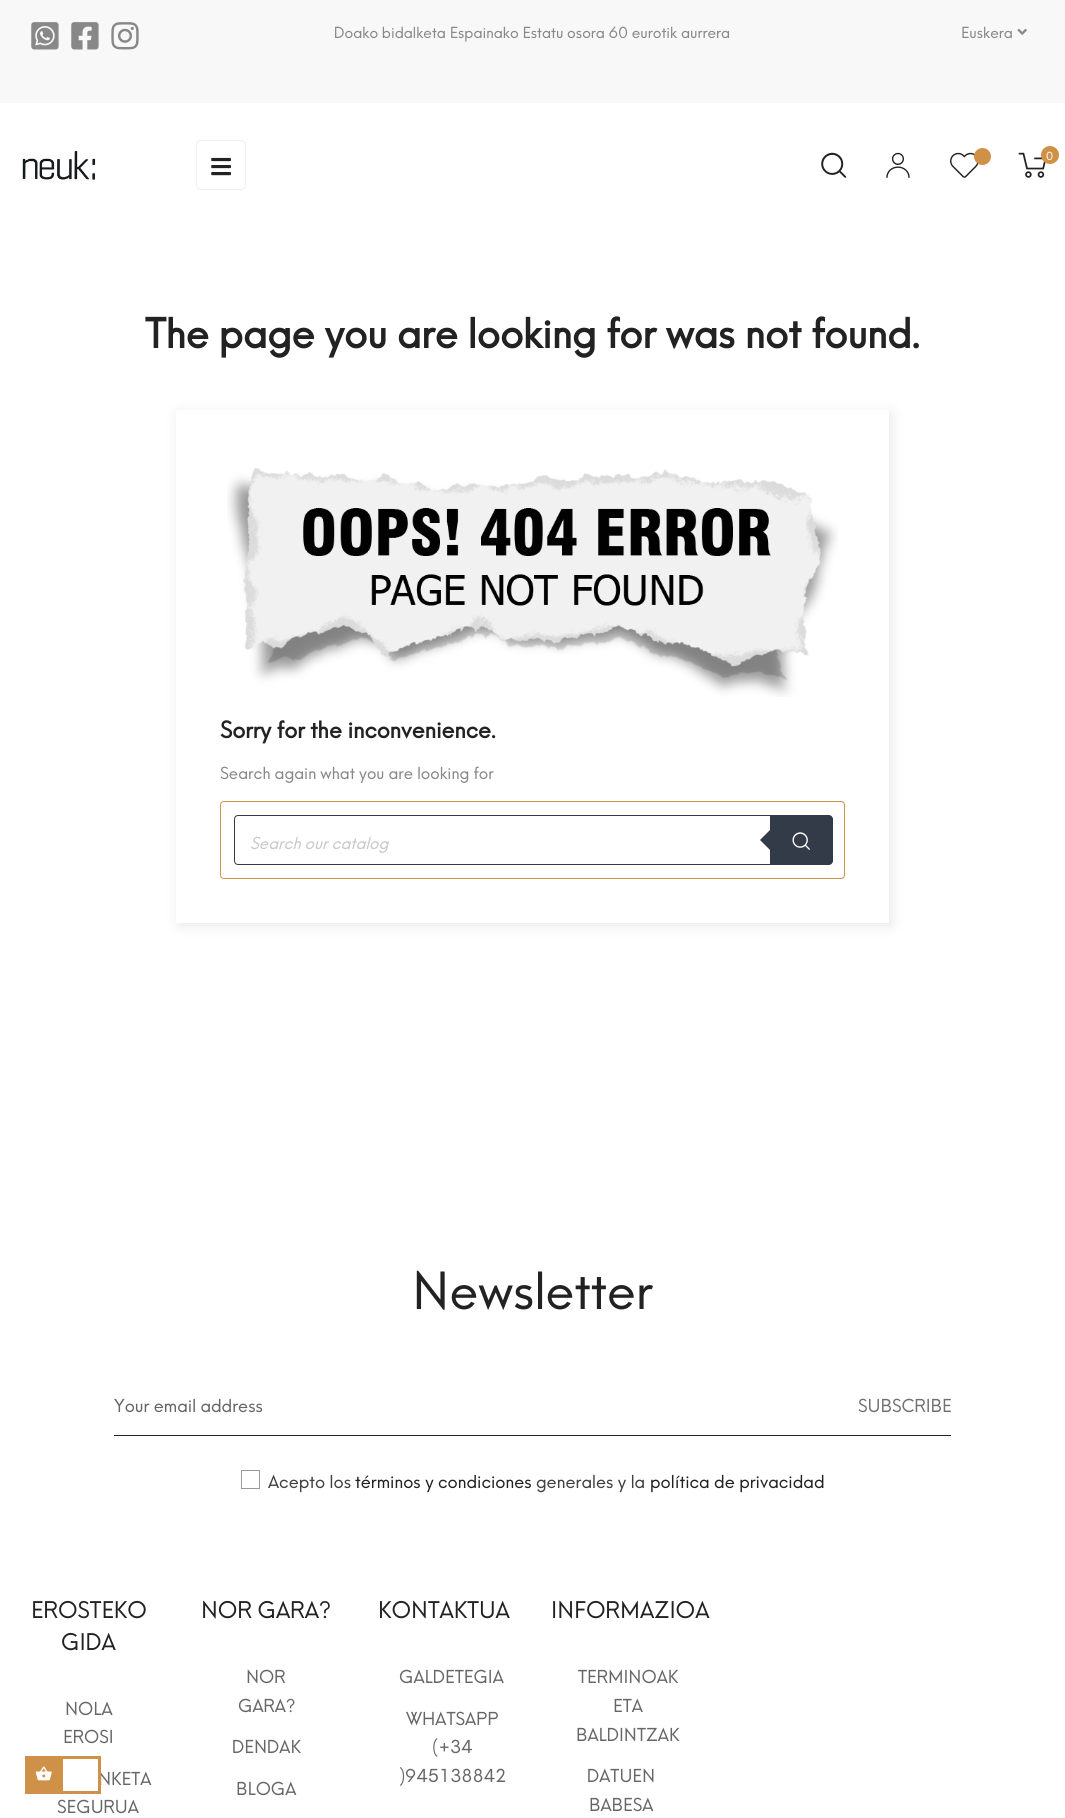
import math
import cairo

surface = cairo.ImageSurface(cairo.Format.RGB24, 1065, 1818)
ctx = cairo.Context(surface)
options = cairo.FontOptions()
options.set_hint_metrics(cairo.HintMetrics.OFF)
options.set_hint_style(cairo.HintStyle.NONE)
ctx.set_font_options(options)
ctx.set_miter_limit(4)


def ink(r, g, b):
    ctx.set_source_rgb(r / 255, g / 255, b / 255)


def write(x, y, s, family, size, color, bold=False, italic=False):
    ctx.select_font_face(family, cairo.FontSlant.ITALIC if italic else cairo.FontSlant.NORMAL, cairo.FontWeight.BOLD if bold else cairo.FontWeight.NORMAL)
    ctx.set_font_size(size)
    ink(*color)
    ctx.move_to(x, y)
    ctx.show_text(s)


def block(x, y, w, h, *color):
    ink(*color)
    ctx.rectangle(x, y, w, h)
    ctx.fill()


def round_path(x, y, w, h, r):
    ctx.new_sub_path()
    for i, (u, v) in enumerate([(x + w - r, y + h - r), (x + r, y + h - r), (x + r, y + r), (x + w - r, y + r)]):
        ctx.arc(u, v, r, i * math.pi / 2, (i + 1) * math.pi / 2)
    ctx.close_path()


def blur_box(x, y, w, h, r, blur, alpha):
    ctx.push_group_with_content(cairo.Content.ALPHA)
    ctx.set_operator(cairo.Operator.SOURCE)
    for i in range(15, -16, -2):
        e = blur * i / 6
        if min(w, h) + 2 * e > 0:
            ctx.set_source_rgba(0, 0, 0, alpha * math.erfc((i - 1) / 8.5) / 2)
            round_path(x - e, y - e, w + 2 * e, h + 2 * e, max(0, min(r + e + blur * .6, min(w, h) / 2 + e)))
            ctx.fill()
    ctx.mask(ctx.pop_group())


def paste(path, x, y, w, h):
    ctx.save()
    ctx.set_source_surface(cairo.ImageSurface.create_from_png(path), x, y)
    ctx.rectangle(x, y, w, h)
    ctx.fill()
    ctx.restore()


s1 = dict(family="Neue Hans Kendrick", size=15, color=(136, 136, 136))
s2 = dict(family="Neue Hans Kendrick", size=11, color=(255, 255, 255))
s3 = dict(family="Neue Hans Kendrick", size=40, color=(34, 34, 34), bold=True)
s4 = dict(family="Neue Hans Kendrick", size=22.5, color=(34, 34, 34), bold=True)
s5 = dict(family="Neue Hans Kendrick", size=16.25, color=(136, 136, 136))
s6 = dict(family="Neue Hans Kendrick", size=16.25, color=(200, 200, 200), italic=True)
s7 = dict(family="Neue Hans Kendrick", size=50, color=(34, 34, 34))
s8 = dict(family="Neue Hans Kendrick", size=17.5, color=(102, 102, 102))
s9 = dict(family="Neue Hans Kendrick", size=17.5, color=(111, 111, 111))
s10 = dict(family="Neue Hans Kendrick", size=17.5, color=(65, 65, 65))
s11 = dict(family="Neue Hans Kendrick", size=17.5, color=(34, 34, 34))
s12 = dict(family="Neue Hans Kendrick", size=22.5, color=(34, 34, 34))

ink(255, 255, 255)
ctx.paint()
block(0, 0, 1065, 103, 248, 248, 248)
paste("pic1.png", 31, 22, 28, 28)
paste("pic2.png", 71, 22, 28, 28)
paste("pic3.png", 111, 22, 28, 28)
write(334, 38, "Doako bidalketa Espainako Estatu osora 60 eurotik aurrera", **s1)
write(961, 38, "Euskera", **s1)
paste("pic4.png", 1017, 28, 10, 7)
paste("pic5.png", 19, 150, 77, 31)
round_path(196.5, 140.5, 49, 49, 4.5)
ink(238, 238, 238)
ctx.set_line_width(1)
ctx.stroke()
paste("pic6.png", 211, 157, 20, 19)
paste("pic7.png", 821, 152, 26, 26)
paste("pic8.png", 886, 152, 24, 26)
paste("pic9.png", 950, 152, 29, 26)
ink(207, 145, 71)
ctx.arc(982.5, 156.5, 8.5, 0, 2 * math.pi)
ctx.fill()
paste("pic10.png", 1018, 152, 28, 26)
ctx.arc(1050, 155, 9, 0, 2 * math.pi)
ctx.fill()
write(1046, 160, "0", **s2)
write(145, 348, "The page you are looking for was not found.", **s3)
ink(0, 0, 0)
blur_box(179, 413, 712, 512, 0, 7, 0.1)
block(176, 410, 713, 513, 255, 255, 255)
paste("pic11.png", 227, 468, 611, 229)
write(220, 738, "Sorry for the inconvenience.", **s4)
write(220, 779, "Search again what you are looking for", **s5)
round_path(220.5, 801.5, 624, 77, 3.5)
ink(207, 145, 71)
ctx.stroke()
round_path(234.5, 815.5, 596, 49, 3.5)
ink(51, 59, 72)
ctx.stroke()
write(250, 849, "Search our catalog", **s6)
ink(51, 59, 72)
ctx.new_path()
ctx.move_to(770, 815)
ctx.line_to(829, 815)
ctx.curve_to(831, 815, 833, 817, 833, 819)
ctx.line_to(833, 861)
ctx.curve_to(833, 863, 831, 865, 829, 865)
ctx.line_to(770, 865)
ctx.close_path()
ctx.fill()
ctx.new_path()
ctx.move_to(770, 830)
ctx.line_to(770, 850)
ctx.line_to(760, 840)
ctx.close_path()
ctx.fill()
paste("pic12.png", 792, 832, 18, 18)
write(412, 1309, "Newsletter", **s7)
block(114, 1435, 837, 1, 34, 34, 34)
write(114, 1412, "Your email address", **s8)
write(858, 1412, "SUBSCRIBE", **s9)
ctx.rectangle(241.5, 1470.5, 18, 18)
ink(153, 153, 153)
ctx.stroke()
write(268, 1488, "Acepto los", **s10)
write(355, 1488, "términos y condiciones", **s11)
write(536, 1488, "generales y la", **s10)
write(650, 1488, "política de privacidad", **s11)
write(31, 1618, "EROSTEKO", **s12)
write(61, 1650, "GIDA", **s12)
write(65, 1715, "NOLA", **s8)
write(63, 1743, "EROSI", **s8)
write(98, 1785, "NKETA", **s8)
write(57, 1813, "SEGURUA", **s8)
write(201, 1618, "NOR GARA?", **s12)
write(246, 1683, "NOR", **s8)
write(238, 1712, "GARA?", **s8)
write(232, 1753, "DENDAK", **s8)
write(236, 1795, "BLOGA", **s8)
write(378, 1618, "KONTAKTUA", **s12)
write(399, 1683, "GALDETEGIA", **s8)
write(406, 1725, "WHATSAPP", **s8)
write(432, 1753, "(+34", **s8)
write(399, 1782, ")945138842", **s8)
write(551, 1618, "INFORMAZIOA", **s12)
write(578, 1683, "TERMINOAK", **s8)
write(613, 1712, "ETA", **s8)
write(576, 1741, "BALDINTZAK", **s8)
write(587, 1782, "DATUEN", **s8)
write(589, 1811, "BABESA", **s8)
block(25, 1756, 76, 38, 207, 145, 71)
paste("pic13.png", 35, 1766, 17, 15)
block(63, 1759, 35, 32, 255, 255, 255)
surface.write_to_png("screenshot.png")
